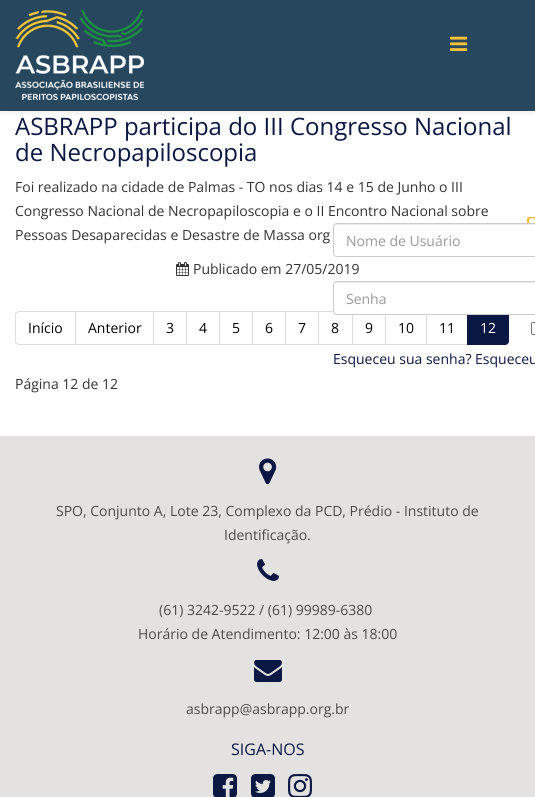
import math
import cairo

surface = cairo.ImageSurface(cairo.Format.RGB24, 535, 797)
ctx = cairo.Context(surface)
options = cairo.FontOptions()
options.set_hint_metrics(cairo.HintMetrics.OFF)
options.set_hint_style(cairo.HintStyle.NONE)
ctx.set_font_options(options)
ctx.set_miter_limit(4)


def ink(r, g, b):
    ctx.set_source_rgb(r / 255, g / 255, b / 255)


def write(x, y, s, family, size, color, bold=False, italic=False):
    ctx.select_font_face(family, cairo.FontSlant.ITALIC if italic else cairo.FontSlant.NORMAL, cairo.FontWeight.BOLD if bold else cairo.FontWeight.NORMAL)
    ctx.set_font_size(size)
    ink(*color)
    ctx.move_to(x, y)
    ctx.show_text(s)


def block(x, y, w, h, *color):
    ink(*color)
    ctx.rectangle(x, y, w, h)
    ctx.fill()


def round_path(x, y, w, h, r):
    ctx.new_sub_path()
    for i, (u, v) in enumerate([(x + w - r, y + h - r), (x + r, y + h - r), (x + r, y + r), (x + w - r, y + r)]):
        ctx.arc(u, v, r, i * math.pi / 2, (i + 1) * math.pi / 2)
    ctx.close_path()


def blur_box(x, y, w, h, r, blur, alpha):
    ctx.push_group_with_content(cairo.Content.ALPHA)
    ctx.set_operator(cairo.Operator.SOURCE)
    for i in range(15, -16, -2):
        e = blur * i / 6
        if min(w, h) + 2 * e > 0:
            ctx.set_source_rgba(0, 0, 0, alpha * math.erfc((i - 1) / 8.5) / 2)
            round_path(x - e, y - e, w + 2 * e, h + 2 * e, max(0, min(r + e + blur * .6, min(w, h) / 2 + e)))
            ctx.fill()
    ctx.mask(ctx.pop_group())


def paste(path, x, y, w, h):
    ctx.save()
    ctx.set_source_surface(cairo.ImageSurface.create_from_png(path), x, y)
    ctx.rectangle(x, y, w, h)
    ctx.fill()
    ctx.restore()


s1 = dict(family="Open Sans", size=24, color=(12, 24, 68))
s2 = dict(family="Open Sans", size=14, color=(51, 51, 51))
s3 = dict(family="Open Sans", size=14, color=(0, 0, 0))
s4 = dict(family="Open Sans", size=14, color=(255, 255, 255))
s5 = dict(family="Open Sans", size=14, color=(153, 153, 153))
s6 = dict(family="Open Sans", size=14, color=(12, 24, 68))
s7 = dict(family="Open Sans", size=14, color=(75, 74, 74))
s8 = dict(family="Open Sans", size=16, color=(12, 24, 68))

ink(255, 255, 255)
ctx.paint()
write(15, 135, "ASBRAPP participa do III Congresso Nacional", **s1)
write(15, 161, "de Necropapiloscopia", **s1)
write(15, 192, "Foi realizado na cidade de Palmas - TO nos dias 14 e 15 de Junho o III", **s2)
write(15, 216, "Congresso Nacional de Necropapiloscopia e o II Encontro Nacional sobre", **s2)
write(15, 240, "Pessoas Desaparecidas e Desastre de Massa org", **s2)
paste("pic1.png", 176, 262, 13, 14)
write(193, 274, "Publicado em 27/05/2019", **s2)
ctx.new_path()
ctx.move_to(19, 311.5)
ctx.line_to(75.5, 311.5)
ctx.line_to(75.5, 344.5)
ctx.line_to(19, 344.5)
ctx.curve_to(17, 344.5, 15.5, 343, 15.5, 341)
ctx.line_to(15.5, 315)
ctx.curve_to(15.5, 313, 17, 311.5, 19, 311.5)
ctx.close_path()
ink(221, 221, 221)
ctx.set_line_width(1)
ctx.stroke()
write(28, 333, "Início", **s3)
ctx.rectangle(75.5, 311.5, 78, 33)
ink(221, 221, 221)
ctx.stroke()
write(88, 333, "Anterior", **s3)
ctx.rectangle(153.5, 311.5, 33, 33)
ink(221, 221, 221)
ctx.stroke()
write(166, 333, "3", **s3)
ctx.rectangle(186.5, 311.5, 33, 33)
ink(221, 221, 221)
ctx.stroke()
write(199, 333, "4", **s3)
ctx.rectangle(219.5, 311.5, 33, 33)
ink(221, 221, 221)
ctx.stroke()
write(232, 333, "5", **s3)
ctx.rectangle(252.5, 311.5, 33, 33)
ink(221, 221, 221)
ctx.stroke()
write(265, 333, "6", **s3)
ctx.rectangle(285.5, 311.5, 33, 33)
ink(221, 221, 221)
ctx.stroke()
write(298, 333, "7", **s3)
ctx.rectangle(318.5, 311.5, 34, 33)
ink(221, 221, 221)
ctx.stroke()
write(331, 333, "8", **s3)
ctx.rectangle(352.5, 311.5, 33, 33)
ink(221, 221, 221)
ctx.stroke()
write(365, 333, "9", **s3)
ctx.rectangle(385.5, 311.5, 41, 33)
ink(221, 221, 221)
ctx.stroke()
write(398, 333, "10", **s3)
ctx.rectangle(426.5, 311.5, 41, 33)
ink(221, 221, 221)
ctx.stroke()
write(439, 333, "11", **s3)
ink(12, 24, 68)
ctx.new_path()
ctx.move_to(467.5, 311.5)
ctx.line_to(505, 311.5)
ctx.curve_to(507, 311.5, 508.5, 313, 508.5, 315)
ctx.line_to(508.5, 341)
ctx.curve_to(508.5, 343, 507, 344.5, 505, 344.5)
ctx.line_to(467.5, 344.5)
ctx.close_path()
ctx.fill_preserve()
ctx.stroke()
write(480, 333, "12", **s4)
write(15, 389, "Página 12 de 12", **s2)
ink(0, 0, 0)
blur_box(0, 3, 535, 111, 0, 1.5, 0.05)
block(0, 0, 535, 111, 39, 71, 95)
paste("pic2.png", 15, 10, 129, 90)
paste("pic3.png", 450, 36, 18, 15)
ink(245, 194, 53)
ctx.new_path()
ctx.move_to(529, 217)
ctx.line_to(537, 217)
ctx.line_to(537, 231)
ctx.line_to(529, 231)
ctx.curve_to(528, 231, 527, 230, 527, 229)
ctx.line_to(527, 219)
ctx.curve_to(527, 218, 528, 217, 529, 217)
ctx.close_path()
ctx.fill()
paste("pic4.png", 529, 218, 6, 5)
ink(255, 255, 255)
round_path(333, 223, 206, 34, 4)
ctx.fill()
ink(236, 236, 236)
ctx.new_path()
ctx.move_to(337, 225)
ctx.line_to(535, 225)
ctx.curve_to(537, 225, 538, 226, 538, 228)
ctx.curve_to(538, 226, 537, 224, 535, 224)
ctx.line_to(337, 224)
ctx.curve_to(335, 224, 334, 226, 334, 228)
ctx.curve_to(334, 226, 335, 225, 337, 225)
ctx.close_path()
ctx.fill()
round_path(333.5, 223.5, 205, 33, 3.5)
ink(204, 204, 204)
ctx.stroke()
write(346, 246, "Nome de Usuário", **s5)
ink(255, 255, 255)
round_path(333, 281, 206, 34, 4)
ctx.fill()
ink(236, 236, 236)
ctx.new_path()
ctx.move_to(337, 283)
ctx.line_to(535, 283)
ctx.curve_to(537, 283, 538, 284, 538, 286)
ctx.curve_to(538, 284, 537, 282, 535, 282)
ctx.line_to(337, 282)
ctx.curve_to(335, 282, 334, 284, 334, 286)
ctx.curve_to(334, 284, 335, 283, 337, 283)
ctx.close_path()
ctx.fill()
round_path(333.5, 281.5, 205, 33, 3.5)
ink(204, 204, 204)
ctx.stroke()
write(346, 304, "Senha", **s5)
round_path(531.5, 322.5, 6, 12, 1.5)
ink(118, 118, 118)
ctx.stroke()
write(333, 364, "Esqueceu sua senha? Esqueceu", **s6)
block(0, 436, 535, 361, 228, 225, 225)
paste("pic5.png", 259, 458, 18, 27)
write(56, 516, "SPO, Conjunto A, Lote 23, Complexo da PCD, Prédio - Instituto de", **s7)
write(224, 540, "Identificação.", **s7)
paste("pic6.png", 257, 559, 22, 22)
write(159, 615, "(61) 3242-9522 / (61) 99989-6380", **s7)
write(138, 639, "Horário de Atendimento: 12:00 às 18:00", **s7)
paste("pic7.png", 254, 660, 28, 22)
write(186, 714, "asbrapp@asbrapp.org.br", **s7)
write(231, 755, "SIGA-NOS", **s8)
paste("pic8.png", 213, 774, 24, 23)
paste("pic9.png", 251, 774, 24, 23)
paste("pic10.png", 288, 774, 24, 23)
surface.write_to_png("screenshot.png")
